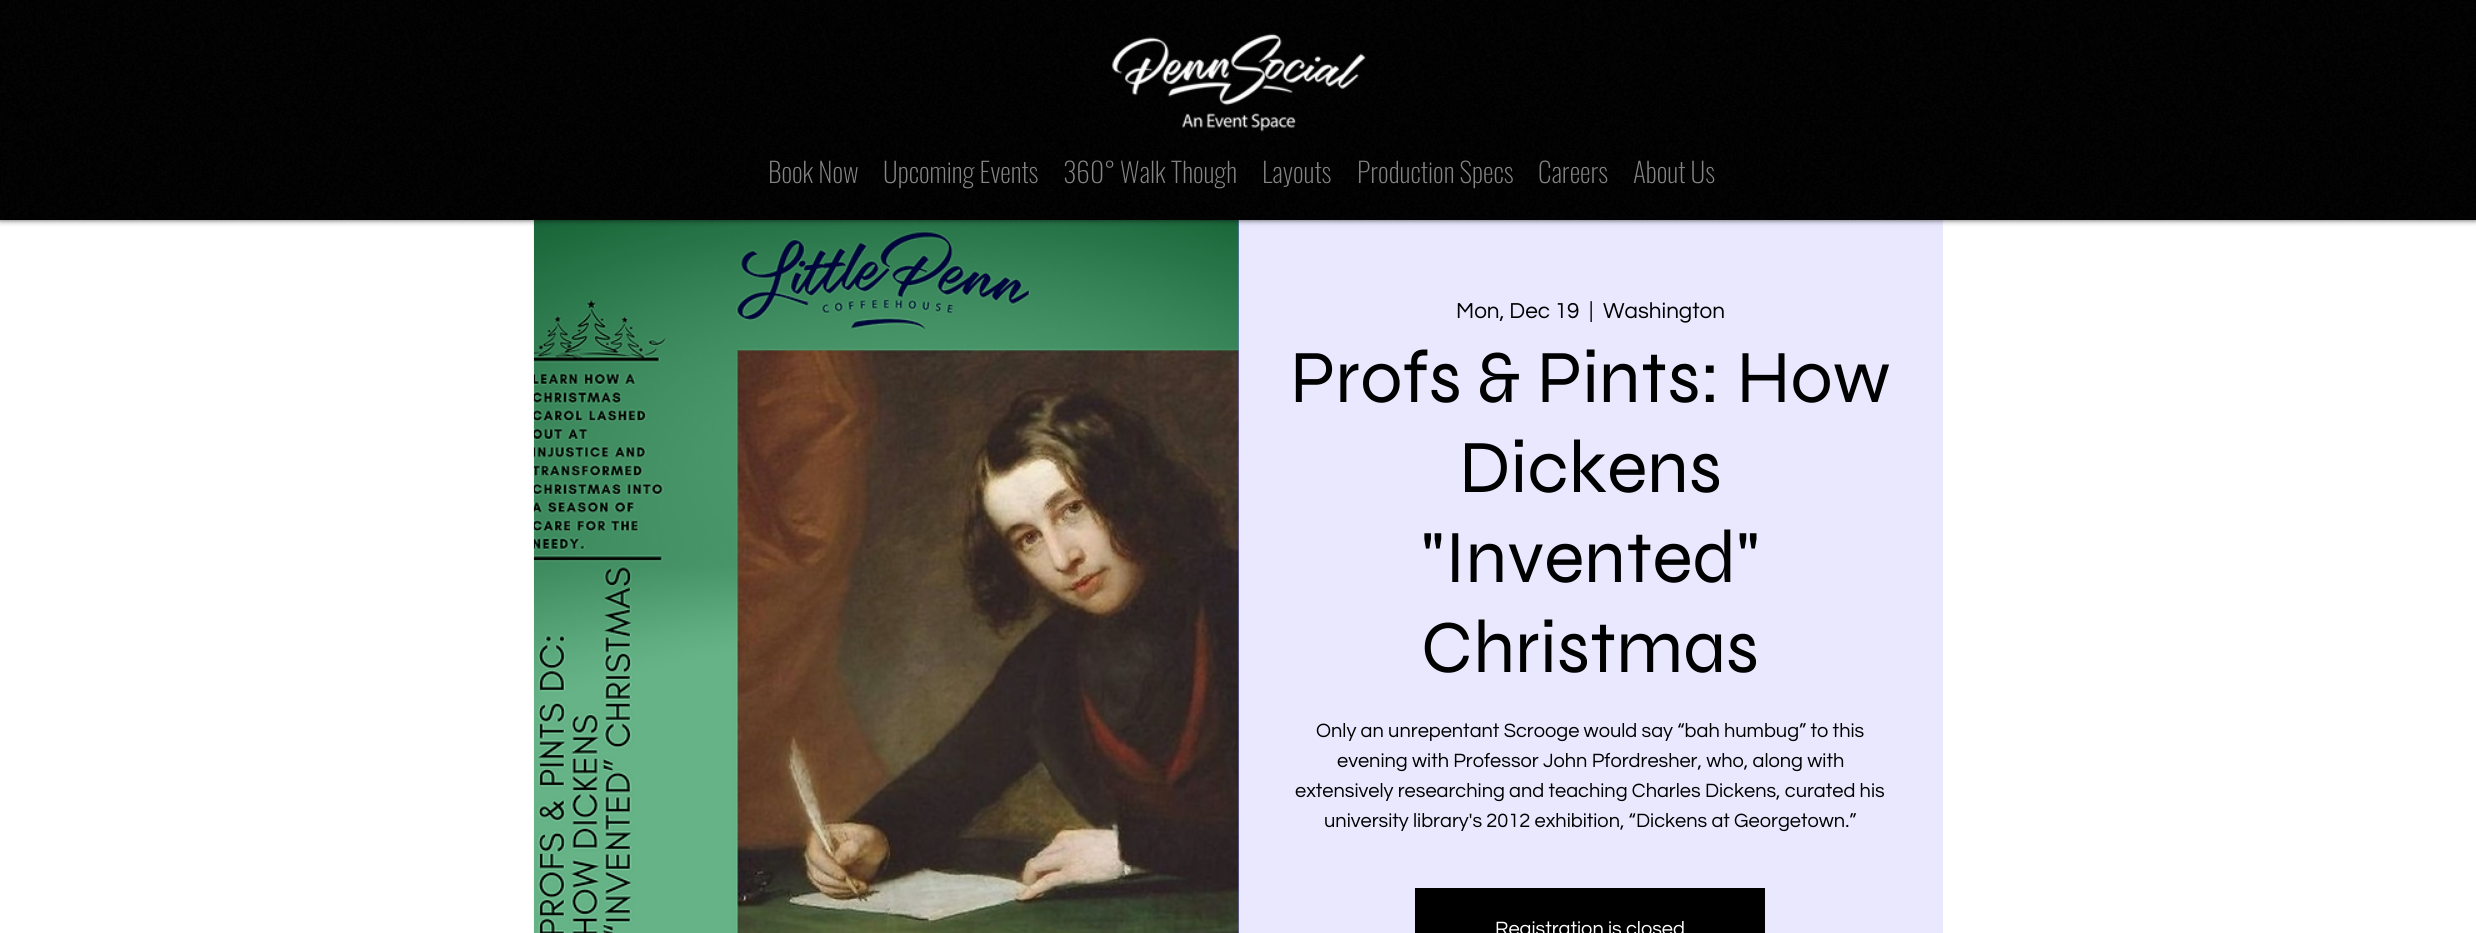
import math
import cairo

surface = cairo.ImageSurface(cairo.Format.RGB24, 2476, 933)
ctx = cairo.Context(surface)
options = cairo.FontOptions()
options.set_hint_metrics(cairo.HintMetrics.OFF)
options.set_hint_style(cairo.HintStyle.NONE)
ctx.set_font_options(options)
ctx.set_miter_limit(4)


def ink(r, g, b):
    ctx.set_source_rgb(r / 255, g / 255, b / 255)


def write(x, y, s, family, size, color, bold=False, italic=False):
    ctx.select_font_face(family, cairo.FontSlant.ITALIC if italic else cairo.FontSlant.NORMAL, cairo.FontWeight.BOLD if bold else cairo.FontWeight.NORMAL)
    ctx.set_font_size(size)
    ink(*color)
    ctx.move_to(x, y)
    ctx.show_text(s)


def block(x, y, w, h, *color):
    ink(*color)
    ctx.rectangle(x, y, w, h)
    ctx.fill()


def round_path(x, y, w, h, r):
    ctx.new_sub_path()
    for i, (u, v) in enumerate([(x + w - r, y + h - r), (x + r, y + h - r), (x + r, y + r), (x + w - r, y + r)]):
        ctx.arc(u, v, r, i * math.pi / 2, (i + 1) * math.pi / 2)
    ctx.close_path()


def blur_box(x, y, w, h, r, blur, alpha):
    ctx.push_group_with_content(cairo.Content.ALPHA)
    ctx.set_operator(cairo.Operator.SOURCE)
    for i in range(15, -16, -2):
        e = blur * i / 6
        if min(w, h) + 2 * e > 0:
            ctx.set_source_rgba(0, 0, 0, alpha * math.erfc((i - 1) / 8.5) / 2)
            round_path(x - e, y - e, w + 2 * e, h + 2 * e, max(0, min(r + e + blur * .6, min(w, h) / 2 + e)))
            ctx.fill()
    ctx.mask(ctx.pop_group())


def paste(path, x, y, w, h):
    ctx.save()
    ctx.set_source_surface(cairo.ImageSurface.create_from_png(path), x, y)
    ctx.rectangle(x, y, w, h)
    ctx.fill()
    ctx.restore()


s1 = dict(family="Oswald ExtraLight", size=27.5, color=(134, 133, 133))
s2 = dict(family="Questrial", size=22.5, color=(0, 0, 0))
s3 = dict(family="Syne", size=75, color=(0, 0, 0))
s4 = dict(family="Questrial", size=20, color=(0, 0, 0))
s5 = dict(family="Questrial", size=20, color=(255, 255, 255))

ink(255, 255, 255)
ctx.paint()
block(1238, 220, 1, 713, 135, 130, 246)
paste("pic3.png", 533, 220, 706, 713)
block(1239, 220, 704, 713, 233, 232, 254)
ink(0, 0, 0)
blur_box(0, 0, 2476, 220, 0, 3, 0.7)
block(0, 0, 2476, 220, 0, 0, 0)
paste("pic1.png", 0, 0, 2476, 220)
paste("pic2.png", 1111, 33, 255, 99)
write(768, 183, "Book Now", **s1)
write(883, 183, "Upcoming Events", **s1)
write(1063, 183, "360° Walk Though", **s1)
write(1262, 183, "Layouts", **s1)
write(1357, 183, "Production Specs", **s1)
write(1538, 183, "Careers", **s1)
write(1633, 183, "About Us", **s1)
write(1456, 318, "Mon, Dec 19", **s2)
write(1589, 318, "|", **s2)
write(1603, 318, "Washington", **s2)
write(1290, 402, "Profs & Pints: How", **s3)
write(1459, 492, "Dickens", **s3)
write(1421, 582, "\"Invented\"", **s3)
write(1421, 672, "Christmas", **s3)
write(1316, 737, "Only an unrepentant Scrooge would say “bah humbug” to this", **s4)
write(1337, 767, "evening with Professor John Pfordresher, who, along with", **s4)
write(1295, 797, "extensively researching and teaching Charles Dickens, curated his", **s4)
write(1324, 827, "university library's 2012 exhibition, “Dickens at Georgetown.”", **s4)
block(1415, 888, 350, 45, 0, 0, 0)
write(1495, 935, "Registration is closed", **s5)
surface.write_to_png("screenshot.png")
